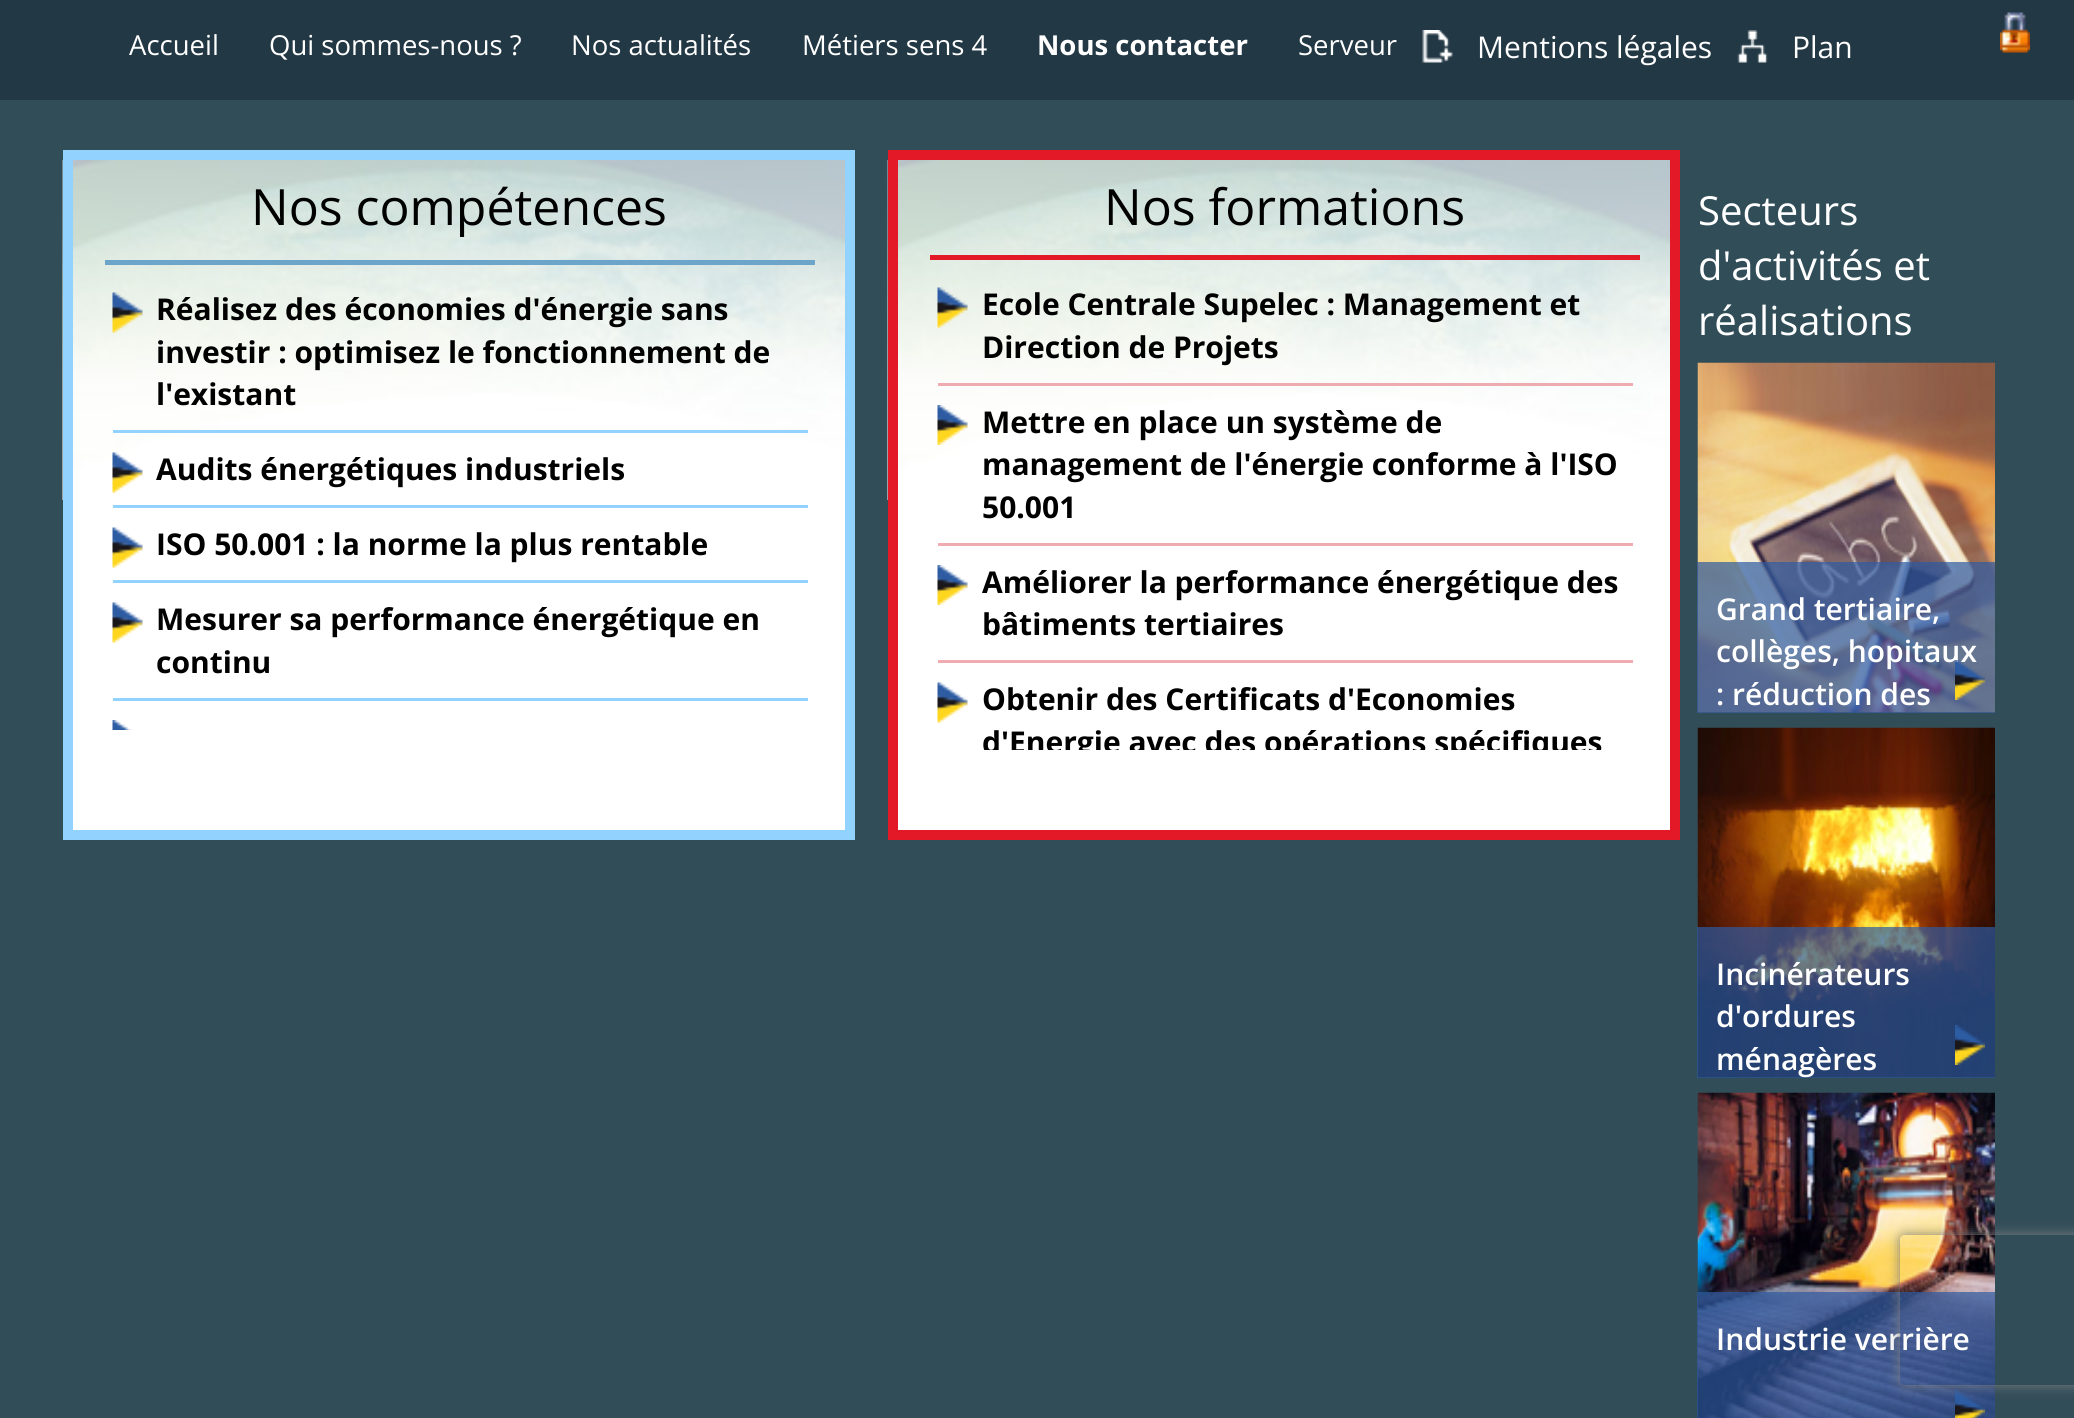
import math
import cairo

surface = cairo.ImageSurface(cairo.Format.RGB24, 2074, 1418)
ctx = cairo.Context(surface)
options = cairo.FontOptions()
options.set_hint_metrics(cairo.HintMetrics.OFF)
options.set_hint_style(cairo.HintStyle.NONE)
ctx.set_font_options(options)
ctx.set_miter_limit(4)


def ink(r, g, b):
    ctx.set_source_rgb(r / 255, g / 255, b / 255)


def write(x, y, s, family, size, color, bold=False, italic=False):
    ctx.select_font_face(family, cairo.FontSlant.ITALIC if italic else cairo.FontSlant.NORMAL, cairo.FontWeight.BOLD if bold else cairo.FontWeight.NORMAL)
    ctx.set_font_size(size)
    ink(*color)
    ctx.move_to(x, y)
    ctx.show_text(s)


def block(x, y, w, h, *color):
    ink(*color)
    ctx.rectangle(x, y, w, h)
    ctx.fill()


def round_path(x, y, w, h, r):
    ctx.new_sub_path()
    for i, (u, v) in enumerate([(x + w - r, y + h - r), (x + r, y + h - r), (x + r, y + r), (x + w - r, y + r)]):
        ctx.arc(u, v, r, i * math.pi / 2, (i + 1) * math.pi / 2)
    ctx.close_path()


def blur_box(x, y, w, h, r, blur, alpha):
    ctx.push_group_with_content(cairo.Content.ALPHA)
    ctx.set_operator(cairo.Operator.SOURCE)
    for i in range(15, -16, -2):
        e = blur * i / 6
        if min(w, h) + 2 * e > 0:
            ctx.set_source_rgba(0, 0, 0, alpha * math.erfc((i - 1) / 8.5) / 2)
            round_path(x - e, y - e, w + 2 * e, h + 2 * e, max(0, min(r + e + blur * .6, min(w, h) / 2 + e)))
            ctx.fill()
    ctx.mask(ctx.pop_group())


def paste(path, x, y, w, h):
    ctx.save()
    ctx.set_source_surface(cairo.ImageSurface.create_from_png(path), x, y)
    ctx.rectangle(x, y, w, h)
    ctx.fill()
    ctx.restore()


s1 = dict(family="Open Sans", size=27.5, color=(255, 255, 255))
s2 = dict(family="Open Sans", size=27.5, color=(255, 255, 255), bold=True)
s3 = dict(family="Open Sans", size=30, color=(255, 255, 255))
s4 = dict(family="Open Sans", size=50, color=(0, 0, 0))
s5 = dict(family="Open Sans", size=30, color=(0, 0, 0), bold=True)
s6 = dict(family="Open Sans", size=40, color=(255, 255, 255))
s7 = dict(family="Open Sans SemiBold", size=30, color=(255, 255, 255))

ink(49, 77, 88)
ctx.paint()
block(0, 0, 2074, 100, 34, 56, 68)
write(129, 55, "Accueil", **s1)
write(269, 55, "Qui sommes-nous ?", **s1)
write(571, 55, "Nos actualités", **s1)
write(802, 55, "Métiers sens 4", **s1)
write(1037, 55, "Nous contacter", **s2)
write(1298, 55, "Serveur", **s1)
paste("pic1.png", 1422, 30, 31, 33)
write(1477, 58, "Mentions légales", **s3)
paste("pic2.png", 1737, 30, 31, 33)
write(1792, 58, "Plan", **s3)
block(73, 500, 772, 330, 255, 255, 255)
paste("pic3.png", 62, 160, 783, 340)
ctx.rectangle(68, 155, 782, 680)
ink(146, 210, 255)
ctx.set_line_width(10)
ctx.stroke()
block(105, 260, 710, 5, 109, 164, 202)
write(251, 225, "Nos compétences", **s4)
paste("pic4.png", 112, 292, 31, 41)
block(113, 430, 695, 3, 146, 210, 255)
write(156, 320, "Réalisez des économies d'énergie sans", **s5)
write(156, 363, "investir : optimisez le fonctionnement de", **s5)
write(156, 405, "l'existant", **s5)
paste("pic5.png", 112, 452, 31, 41)
block(113, 505, 695, 3, 146, 210, 255)
write(156, 480, "Audits énergétiques industriels", **s5)
paste("pic6.png", 112, 527, 31, 41)
block(113, 580, 695, 3, 146, 210, 255)
write(156, 555, "ISO 50.001 : la norme la plus rentable", **s5)
paste("pic6.png", 112, 602, 31, 41)
block(113, 698, 695, 3, 146, 210, 255)
write(156, 630, "Mesurer sa performance énergétique en", **s5)
write(156, 673, "continu", **s5)
paste("pic7.png", 112, 720, 21, 10)
block(898, 500, 772, 330, 255, 255, 255)
paste("pic8.png", 887, 160, 783, 340)
ctx.rectangle(893, 155, 782, 680)
ink(227, 25, 39)
ctx.stroke()
block(930, 255, 710, 5, 227, 25, 39)
write(1104, 225, "Nos formations", **s4)
paste("pic9.png", 937, 287, 31, 41)
block(938, 383, 695, 3, 238, 172, 176)
write(982, 315, "Ecole Centrale Supelec : Management et", **s5)
write(982, 358, "Direction de Projets", **s5)
paste("pic10.png", 937, 405, 31, 40)
block(938, 543, 695, 3, 238, 172, 176)
write(982, 433, "Mettre en place un système de", **s5)
write(982, 475, "management de l'énergie conforme à l'ISO", **s5)
write(982, 518, "50.001", **s5)
paste("pic11.png", 937, 565, 31, 40)
block(938, 660, 695, 3, 238, 172, 176)
write(982, 593, "Améliorer la performance énergétique des", **s5)
write(982, 635, "bâtiments tertiaires", **s5)
paste("pic12.png", 937, 682, 31, 41)
write(982, 710, "Obtenir des Certificats d'Economies", **s5)
ctx.save()
ctx.rectangle(930, 260, 710, 490)
ctx.clip()
write(982, 753, "d'Energie avec des opérations spécifiques", **s5)
ctx.restore()
write(1698, 225, "Secteurs", **s6)
write(1698, 280, "d'activités et", **s6)
write(1698, 335, "réalisations", **s6)
paste("pic13.png", 1697, 362, 298, 351)
ctx.set_source_rgba(0.184, 0.357, 0.635, 0.7)
ctx.rectangle(1697, 562, 298, 151)
ctx.fill()
write(1716, 620, "Grand tertiaire,", **s7)
write(1716, 662, "collèges, hopitaux", **s7)
write(1716, 705, ": réduction des", **s7)
paste("pic14.png", 1955, 660, 30, 40)
paste("pic15.png", 1697, 727, 298, 351)
ctx.set_source_rgba(0.184, 0.357, 0.635, 0.7)
ctx.rectangle(1697, 927, 298, 151)
ctx.fill()
write(1716, 985, "Incinérateurs", **s7)
write(1716, 1027, "d'ordures", **s7)
write(1716, 1070, "ménagères", **s7)
paste("pic16.png", 1955, 1025, 30, 40)
paste("pic17.png", 1697, 1092, 298, 326)
ctx.set_source_rgba(0.184, 0.357, 0.635, 0.7)
ctx.rectangle(1697, 1292, 298, 126)
ctx.fill()
write(1716, 1350, "Industrie verrière", **s7)
paste("pic18.png", 1955, 1390, 30, 28)
paste("pic19.png", 2000, 12, 30, 41)
ctx.save()
ctx.set_fill_rule(cairo.FillRule.EVEN_ODD)
ctx.new_path()
ctx.move_to(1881, 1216)
ctx.line_to(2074, 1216)
ctx.line_to(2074, 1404)
ctx.line_to(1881, 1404)
ctx.close_path()
ctx.move_to(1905, 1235)
ctx.line_to(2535, 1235)
ctx.curve_to(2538, 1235, 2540, 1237, 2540, 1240)
ctx.line_to(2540, 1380)
ctx.curve_to(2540, 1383, 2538, 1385, 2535, 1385)
ctx.line_to(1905, 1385)
ctx.curve_to(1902, 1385, 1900, 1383, 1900, 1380)
ctx.line_to(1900, 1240)
ctx.curve_to(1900, 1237, 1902, 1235, 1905, 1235)
ctx.close_path()
ctx.clip()
ink(128, 128, 128)
blur_box(1900, 1235, 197, 150, 5, 6, 1)
ctx.restore()
surface.write_to_png("screenshot.png")
